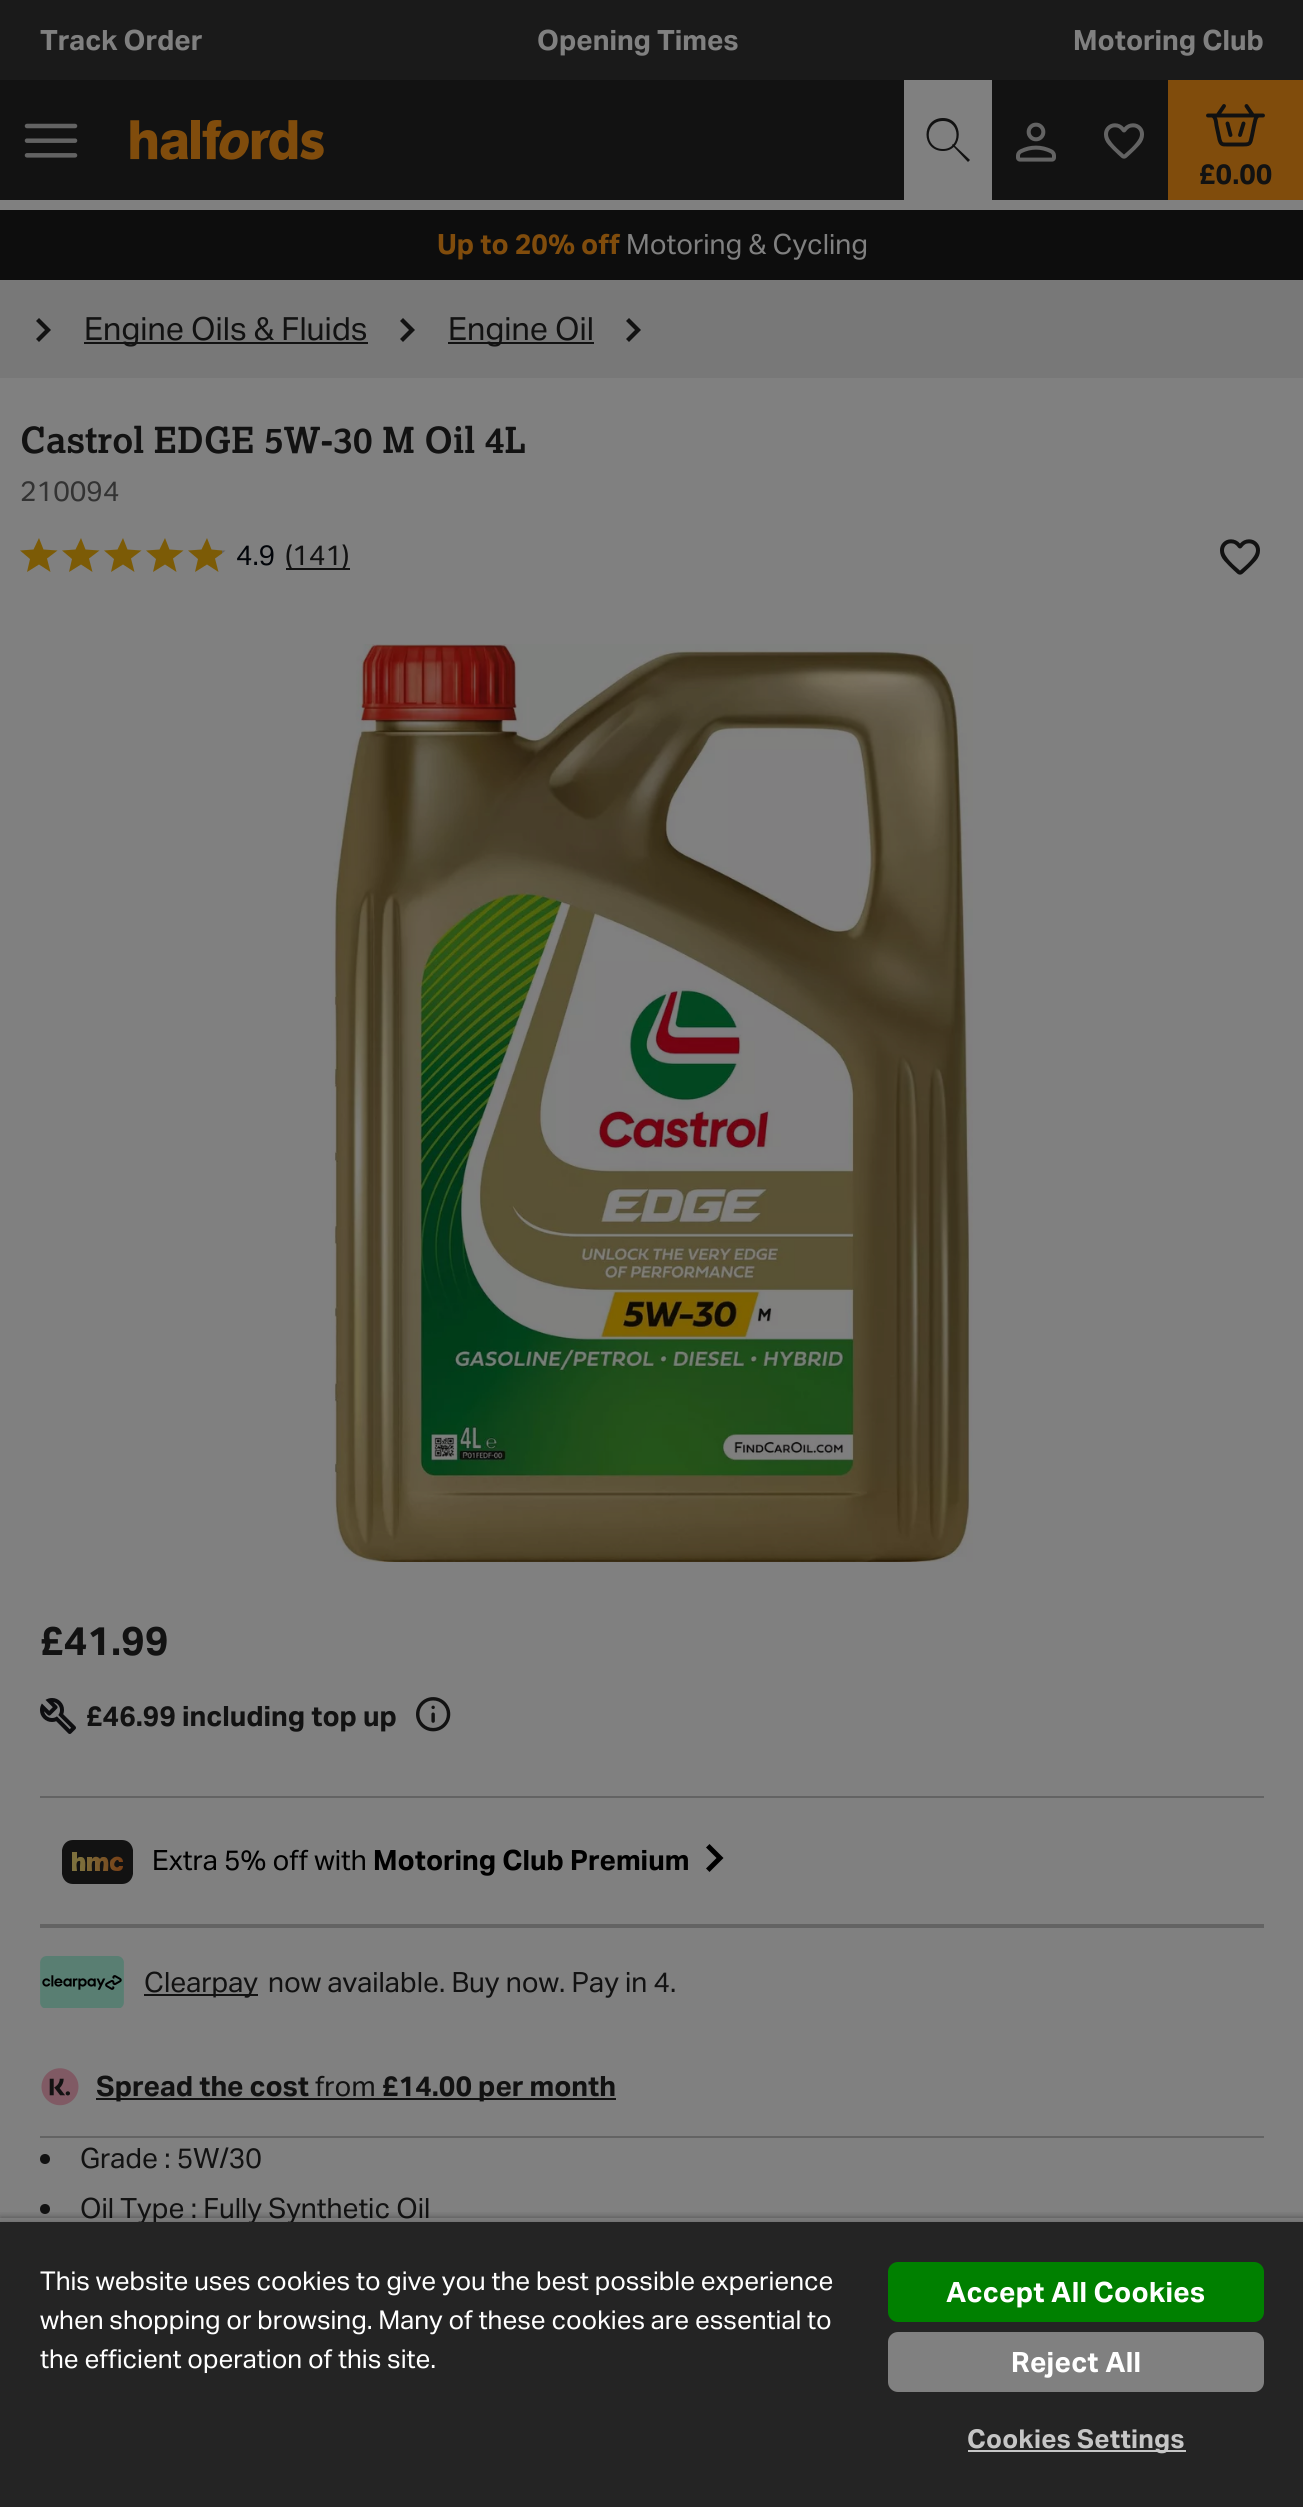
import math
import cairo

surface = cairo.ImageSurface(cairo.Format.RGB24, 1303, 2507)
ctx = cairo.Context(surface)
options = cairo.FontOptions()
options.set_hint_metrics(cairo.HintMetrics.OFF)
options.set_hint_style(cairo.HintStyle.NONE)
ctx.set_font_options(options)
ctx.set_miter_limit(4)


def ink(r, g, b):
    ctx.set_source_rgb(r / 255, g / 255, b / 255)


def write(x, y, s, family, size, color, bold=False, italic=False):
    ctx.select_font_face(family, cairo.FontSlant.ITALIC if italic else cairo.FontSlant.NORMAL, cairo.FontWeight.BOLD if bold else cairo.FontWeight.NORMAL)
    ctx.set_font_size(size)
    ink(*color)
    ctx.move_to(x, y)
    ctx.show_text(s)


def write_spaced(x, y, s, letter, word):
    ctx.move_to(x, y)
    for ch in s:
        ctx.show_text(ch)
        ctx.rel_move_to(letter + word * (ch == ' '), 0)


def block(x, y, w, h, *color):
    ink(*color)
    ctx.rectangle(x, y, w, h)
    ctx.fill()


def round_path(x, y, w, h, r):
    ctx.new_sub_path()
    for i, (u, v) in enumerate([(x + w - r, y + h - r), (x + r, y + h - r), (x + r, y + r), (x + w - r, y + r)]):
        ctx.arc(u, v, r, i * math.pi / 2, (i + 1) * math.pi / 2)
    ctx.close_path()


def blur_box(x, y, w, h, r, blur, alpha):
    ctx.push_group_with_content(cairo.Content.ALPHA)
    ctx.set_operator(cairo.Operator.SOURCE)
    for i in range(15, -16, -2):
        e = blur * i / 6
        if min(w, h) + 2 * e > 0:
            ctx.set_source_rgba(0, 0, 0, alpha * math.erfc((i - 1) / 8.5) / 2)
            round_path(x - e, y - e, w + 2 * e, h + 2 * e, max(0, min(r + e + blur * .6, min(w, h) / 2 + e)))
            ctx.fill()
    ctx.mask(ctx.pop_group())


def paste(path, x, y, w, h):
    ctx.save()
    ctx.set_source_surface(cairo.ImageSurface.create_from_png(path), x, y)
    ctx.rectangle(x, y, w, h)
    ctx.fill()
    ctx.restore()


s1 = dict(family="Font", size=28, color=(128, 128, 128), bold=True)
s2 = dict(family="Font", size=28, color=(18, 18, 18), bold=True)
s3 = dict(family="Font", size=28, color=(128, 76, 12), bold=True)
s4 = dict(family="Font", size=28, color=(128, 128, 128))
s5 = dict(family="Font", size=32, color=(18, 18, 18))
s6 = dict(family="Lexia", size=36, color=(18, 18, 18), bold=True)
s7 = dict(family="Font", size=28, color=(51, 51, 51))
s8 = dict(family="Font", size=28, color=(1, 4, 9))
s9 = dict(family="Font", size=28, color=(18, 18, 18))
s10 = dict(family="Font", size=40, color=(18, 18, 18), bold=True)
s11 = dict(family="Font", size=28, color=(0, 0, 0))
s12 = dict(family="Font", size=28, color=(0, 0, 0), bold=True)
s13 = dict(family="Font", size=26, color=(255, 255, 255))

ink(128, 128, 128)
ctx.paint()
block(0, 0, 1303, 80, 26, 26, 26)
write(40, 50, "Track Order", **s1)
write(537, 50, "Opening Times", **s1)
write(1073, 50, "Motoring Club", **s1)
block(0, 80, 1168, 120, 18, 18, 18)
paste("pic1.png", 24, 123, 54, 35)
paste("pic2.png", 130, 120, 194, 40)
block(904, 80, 88, 120, 128, 128, 128)
ink(18, 18, 18)
ctx.new_path()
ctx.move_to(952, 145)
ctx.line_to(953, 144)
ctx.line_to(970, 160)
ctx.line_to(968, 162)
ctx.close_path()
ctx.move_to(943, 151)
ctx.curve_to(921, 151, 921, 118, 943, 118)
ctx.curve_to(964, 118, 964, 151, 943, 151)
ctx.close_path()
ctx.move_to(943, 121)
ctx.curve_to(924, 121, 924, 149, 943, 149)
ctx.curve_to(961, 149, 961, 121, 943, 121)
ctx.close_path()
ctx.fill()
paste("pic3.png", 1016, 122, 40, 40)
paste("pic4.png", 1104, 123, 40, 36)
block(1168, 80, 135, 120, 128, 76, 12)
ctx.new_path()
ctx.move_to(1230.5, 135)
ctx.line_to(1227.5, 123.5)
ctx.move_to(1224, 106)
ctx.line_to(1217.5, 115.5)
ctx.move_to(1246.5, 106)
ctx.line_to(1253, 115.5)
ctx.move_to(1240, 135)
ctx.line_to(1243.5, 123.5)
ctx.move_to(1211, 115.5)
ctx.curve_to(1216, 115.5, 1216, 122.5, 1216.5, 125.5)
ctx.line_to(1219.5, 139.5)
ctx.curve_to(1221, 144.5, 1222, 144.5, 1227, 144.5)
ctx.line_to(1241, 144.5)
ctx.curve_to(1250.5, 144.5, 1250, 144.5, 1252, 135.5)
ctx.line_to(1254, 125.5)
ctx.curve_to(1255, 122.5, 1255, 115.5, 1259.5, 115.5)
ctx.move_to(1208, 115.5)
ctx.line_to(1263, 115.5)
ink(17, 17, 17)
ctx.set_line_width(3.9)
ctx.set_line_cap(cairo.LineCap.ROUND)
ctx.stroke()
write(1199, 184, "£0.00", **s2)
block(0, 210, 1303, 70, 13, 13, 13)
write(437, 254, "Up to 20% off", **s3)
write(626, 254, "Motoring & Cycling", **s4)
block(0, 280, 1303, 98, 120, 120, 120)
ink(18, 18, 18)
ctx.new_path()
ctx.move_to(36, 321)
ctx.line_to(45, 330)
ctx.line_to(36, 339)
ctx.line_to(39, 342)
ctx.line_to(51, 330)
ctx.line_to(39, 318)
ctx.close_path()
ctx.fill()
block(84, 342, 284, 2, 18, 18, 18)
write(84, 340, "Engine Oils & Fluids", **s5)
ctx.new_path()
ctx.move_to(400, 321)
ctx.line_to(409, 330)
ctx.line_to(400, 339)
ctx.line_to(403, 342)
ctx.line_to(415, 330)
ctx.line_to(403, 318)
ctx.close_path()
ctx.fill()
block(448, 342, 146, 2, 18, 18, 18)
write(448, 340, "Engine Oil", **s5)
ctx.new_path()
ctx.move_to(626, 321)
ctx.line_to(635, 330)
ctx.line_to(626, 339)
ctx.line_to(629, 342)
ctx.line_to(641, 330)
ctx.line_to(629, 318)
ctx.close_path()
ctx.fill()
write(20, 453, "Castrol EDGE 5W-30 M Oil 4L", **s6)
write(20, 501, "210094", **s7)
ink(124, 91, 6)
ctx.new_path()
ctx.move_to(39, 538)
ctx.line_to(43.5, 549.5)
ctx.line_to(57.5, 550.5)
ctx.line_to(47, 558.5)
ctx.line_to(50.5, 572)
ctx.line_to(39, 564.5)
ctx.line_to(27, 572)
ctx.line_to(30, 559)
ctx.line_to(20, 550.5)
ctx.line_to(33.5, 549.5)
ctx.close_path()
ctx.fill()
ctx.new_path()
ctx.move_to(81, 538)
ctx.line_to(85.5, 549.5)
ctx.line_to(99.5, 550.5)
ctx.line_to(89, 558.5)
ctx.line_to(92.5, 572)
ctx.line_to(81, 564.5)
ctx.line_to(69, 572)
ctx.line_to(72, 559)
ctx.line_to(62, 550.5)
ctx.line_to(75.5, 549.5)
ctx.close_path()
ctx.fill()
ctx.new_path()
ctx.move_to(123, 538)
ctx.line_to(127.5, 549.5)
ctx.line_to(141.5, 550.5)
ctx.line_to(131, 558.5)
ctx.line_to(134.5, 572)
ctx.line_to(123, 564.5)
ctx.line_to(111, 572)
ctx.line_to(114, 559)
ctx.line_to(104, 550.5)
ctx.line_to(117.5, 549.5)
ctx.close_path()
ctx.fill()
ctx.new_path()
ctx.move_to(165, 538)
ctx.line_to(169.5, 549.5)
ctx.line_to(183.5, 550.5)
ctx.line_to(173, 558.5)
ctx.line_to(176.5, 572)
ctx.line_to(165, 564.5)
ctx.line_to(153, 572)
ctx.line_to(156, 559)
ctx.line_to(146, 550.5)
ctx.line_to(159.5, 549.5)
ctx.close_path()
ctx.fill()
ctx.new_path()
ctx.move_to(222, 553.5)
ctx.line_to(215, 558.5)
ctx.line_to(218.5, 572)
ctx.line_to(207, 564.5)
ctx.line_to(195, 572)
ctx.line_to(198, 559)
ctx.line_to(188, 550.5)
ctx.line_to(201.5, 549.5)
ctx.line_to(207, 538)
ctx.line_to(211.5, 549.5)
ctx.line_to(222, 550.5)
ctx.close_path()
ctx.fill()
ink(99, 99, 99)
ctx.new_path()
ctx.move_to(222, 550.5)
ctx.line_to(225.5, 550.5)
ctx.line_to(222, 553.5)
ctx.close_path()
ctx.fill()
write(236, 565, "4.9", **s8)
block(286, 568, 64, 2, 18, 18, 18)
write(285, 565, "(141)", **s9)
paste("pic5.png", 1220, 539, 40, 36)
paste("pic6.png", 331, 644, 642, 918)
write(40, 1655, "£41.99", **s10)
paste("pic7.png", 40, 1698, 36, 36)
write(86, 1726, "£46.99 including top up", **s2)
paste("pic8.png", 416, 1697, 35, 35)
block(40, 1796, 1224, 2, 99, 99, 99)
ink(18, 18, 18)
ctx.new_path()
ctx.move_to(73, 1840)
ctx.curve_to(67, 1840, 63, 1844, 62, 1850)
ctx.line_to(62, 1874)
ctx.curve_to(63, 1880, 67, 1884, 73, 1884)
ctx.line_to(122, 1884)
ctx.curve_to(128, 1884, 132, 1880, 133, 1874)
ctx.line_to(133, 1850)
ctx.curve_to(132, 1844, 128, 1840, 122, 1840)
ctx.close_path()
ctx.fill()
gradient = cairo.LinearGradient(72, 1862, 123, 1862)
gradient.add_color_stop_rgba(0, 0.49, 0.439, 0.239, 1)
gradient.add_color_stop_rgba(0.15, 0.49, 0.439, 0.239, 1)
gradient.add_color_stop_rgba(1, 0.467, 0.247, 0.086, 1)
ctx.set_source(gradient)
ctx.set_fill_rule(cairo.FillRule.EVEN_ODD)
ctx.new_path()
ctx.move_to(72, 1871)
ctx.line_to(72, 1852)
ctx.line_to(77, 1852)
ctx.line_to(77, 1859)
ctx.curve_to(78, 1857, 79, 1857, 81, 1857)
ctx.curve_to(87, 1857, 85, 1867, 85, 1871)
ctx.line_to(80, 1871)
ctx.line_to(80, 1866)
ctx.curve_to(80, 1864, 81, 1860, 79, 1861)
ctx.curve_to(75, 1861, 77, 1869, 77, 1871)
ctx.close_path()
ctx.move_to(112, 1859)
ctx.curve_to(115, 1855, 123, 1856, 123, 1862)
ctx.line_to(119, 1862)
ctx.curve_to(118, 1856, 111, 1865, 116, 1867)
ctx.curve_to(117, 1868, 119, 1867, 119, 1866)
ctx.line_to(123, 1866)
ctx.curve_to(123, 1869, 121, 1871, 118, 1871)
ctx.curve_to(113, 1871, 110, 1870, 110, 1864)
ctx.curve_to(110, 1862, 110, 1860, 112, 1859)
ctx.close_path()
ctx.move_to(100, 1859)
ctx.curve_to(101, 1857, 102, 1857, 104, 1857)
ctx.curve_to(110, 1857, 108, 1867, 108, 1871)
ctx.line_to(103, 1871)
ctx.curve_to(103, 1869, 105, 1860, 102, 1861)
ctx.curve_to(99, 1861, 100, 1869, 100, 1871)
ctx.line_to(95, 1871)
ctx.line_to(95, 1862)
ctx.line_to(95, 1861)
ctx.line_to(93, 1861)
ctx.curve_to(91, 1862, 92, 1869, 92, 1871)
ctx.line_to(87, 1871)
ctx.line_to(87, 1857)
ctx.line_to(92, 1857)
ctx.line_to(92, 1859)
ctx.curve_to(94, 1856, 98, 1856, 100, 1859)
ctx.close_path()
ctx.fill()
write(152, 1870, "Extra 5% off with", **s11)
write(373, 1870, "Motoring Club Premium", **s12)
ctx.set_fill_rule(cairo.FillRule.WINDING)
ctx.new_path()
ctx.move_to(706, 1847.5)
ctx.line_to(716.5, 1858)
ctx.line_to(706, 1868.5)
ctx.line_to(709.5, 1872)
ctx.line_to(723.5, 1858)
ctx.line_to(709.5, 1844)
ctx.close_path()
ctx.fill()
block(40, 1924, 1224, 4, 99, 99, 99)
paste("pic9.png", 40, 1956, 84, 52)
block(144, 1994, 114, 2, 18, 18, 18)
write(144, 1992, "Clearpay", **s9)
write(268, 1992, "now available. Buy now. Pay in 4.", **s9)
block(40, 2136, 1224, 2, 99, 99, 99)
paste("pic10.png", 41, 2068, 38, 38)
block(96, 2098, 520, 2, 18, 18, 18)
write(96, 2096, "Spread the cost", **s2)
write(315, 2096, "from", **s9)
write(382, 2096, "£14.00 per month", **s2)
ctx.new_path()
ctx.arc(45, 2159, 5, 0, 2 * math.pi)
ctx.fill()
write(80, 2168, "Grade : 5W/30", **s9)
ctx.new_path()
ctx.arc(45, 2209, 5, 0, 2 * math.pi)
ctx.fill()
write(80, 2218, "Oil Type : Fully Synthetic Oil", **s9)
ctx.save()
ctx.rectangle(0, 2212, 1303, 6)
ctx.clip()
ink(0, 0, 0)
blur_box(0, 2218, 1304, 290, 0, 4, 0.35)
ctx.restore()
ink(0, 0, 0)
blur_box(0, 2222, 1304, 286, 0, 4, 0.2)
block(0, 2222, 1303, 285, 36, 36, 36)
write(40, 2290, "This website uses cookies to give you the best possible experience", **s13)
write(40, 2329, "when shopping or browsing. Many of these cookies are essential to", **s13)
write(40, 2368, "the efficient operation of this site.", **s13)
ink(0, 128, 0)
round_path(888, 2262, 376, 60, 10)
ctx.fill()
ctx.select_font_face("Font", cairo.FontSlant.NORMAL, cairo.FontWeight.BOLD)
ctx.set_font_size(28)
ink(255, 255, 255)
write_spaced(946, 2302, "Accept All Cookies", 0.25, 0)
ink(128, 128, 128)
round_path(888, 2332, 376, 60, 10)
ctx.fill()
ink(255, 255, 255)
write_spaced(1011, 2372, "Reject All", 0.25, 0)
block(968, 2450, 218, 2, 198, 198, 198)
ctx.set_font_size(26)
write_spaced(967, 2448, "Cookies Settings", 0.25, 0)
surface.write_to_png("screenshot.png")
